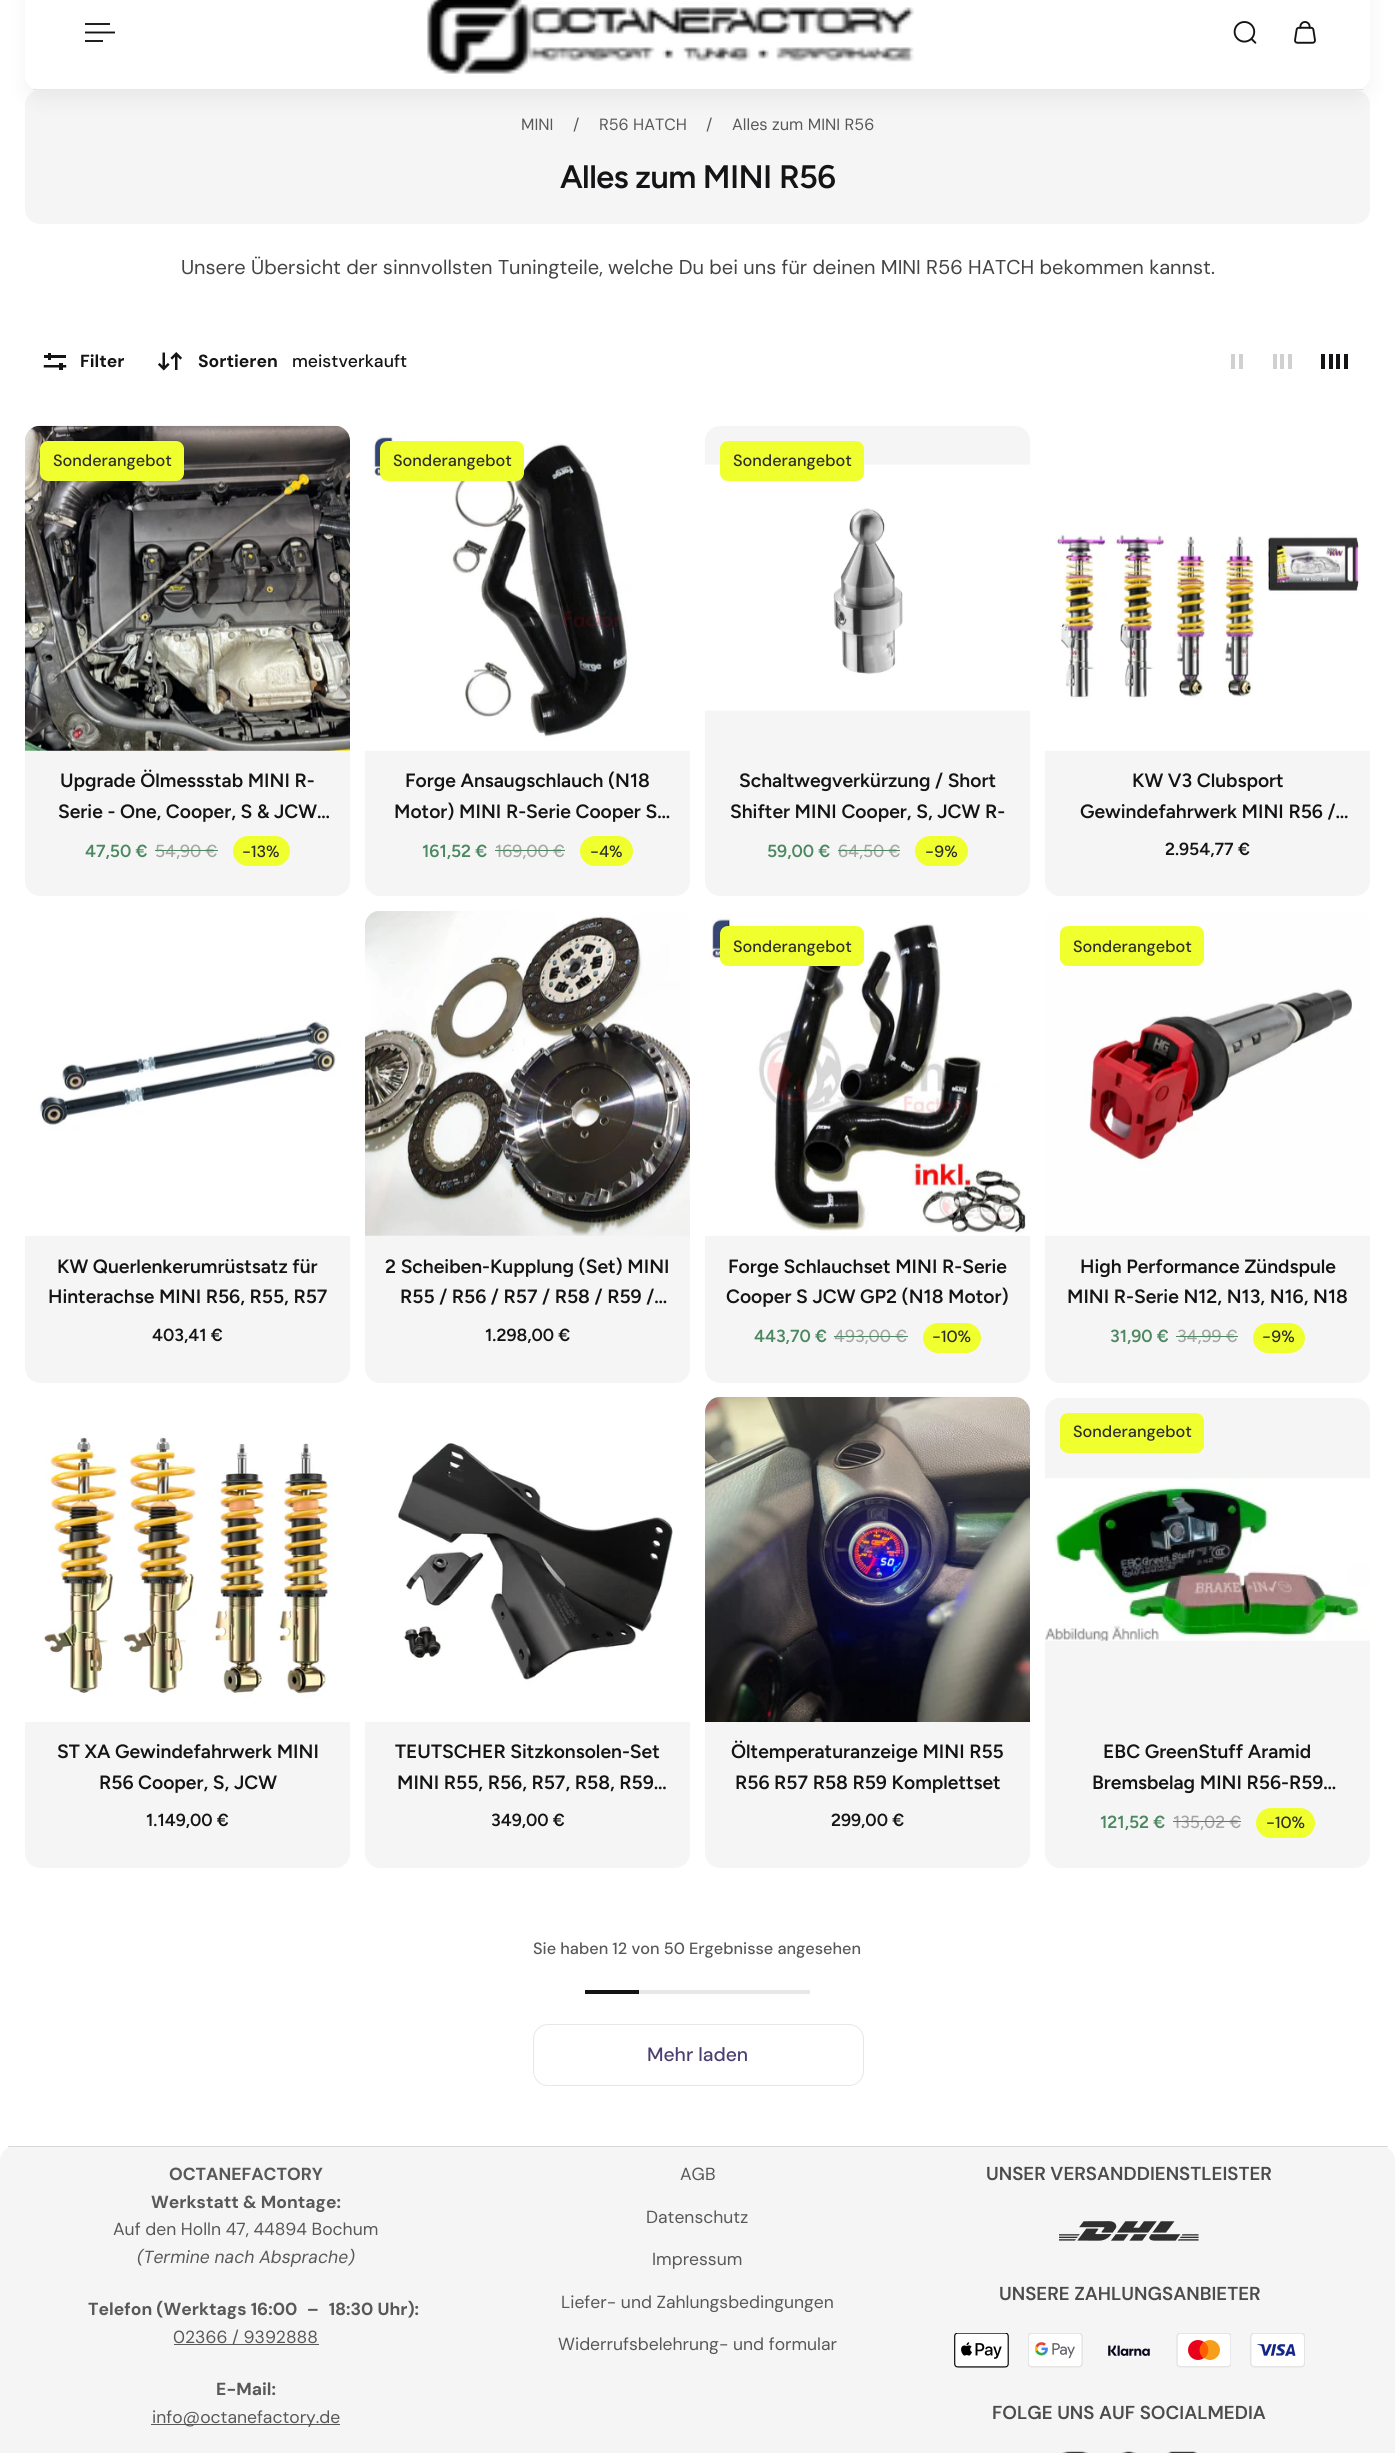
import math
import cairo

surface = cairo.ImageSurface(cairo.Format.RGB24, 1395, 2453)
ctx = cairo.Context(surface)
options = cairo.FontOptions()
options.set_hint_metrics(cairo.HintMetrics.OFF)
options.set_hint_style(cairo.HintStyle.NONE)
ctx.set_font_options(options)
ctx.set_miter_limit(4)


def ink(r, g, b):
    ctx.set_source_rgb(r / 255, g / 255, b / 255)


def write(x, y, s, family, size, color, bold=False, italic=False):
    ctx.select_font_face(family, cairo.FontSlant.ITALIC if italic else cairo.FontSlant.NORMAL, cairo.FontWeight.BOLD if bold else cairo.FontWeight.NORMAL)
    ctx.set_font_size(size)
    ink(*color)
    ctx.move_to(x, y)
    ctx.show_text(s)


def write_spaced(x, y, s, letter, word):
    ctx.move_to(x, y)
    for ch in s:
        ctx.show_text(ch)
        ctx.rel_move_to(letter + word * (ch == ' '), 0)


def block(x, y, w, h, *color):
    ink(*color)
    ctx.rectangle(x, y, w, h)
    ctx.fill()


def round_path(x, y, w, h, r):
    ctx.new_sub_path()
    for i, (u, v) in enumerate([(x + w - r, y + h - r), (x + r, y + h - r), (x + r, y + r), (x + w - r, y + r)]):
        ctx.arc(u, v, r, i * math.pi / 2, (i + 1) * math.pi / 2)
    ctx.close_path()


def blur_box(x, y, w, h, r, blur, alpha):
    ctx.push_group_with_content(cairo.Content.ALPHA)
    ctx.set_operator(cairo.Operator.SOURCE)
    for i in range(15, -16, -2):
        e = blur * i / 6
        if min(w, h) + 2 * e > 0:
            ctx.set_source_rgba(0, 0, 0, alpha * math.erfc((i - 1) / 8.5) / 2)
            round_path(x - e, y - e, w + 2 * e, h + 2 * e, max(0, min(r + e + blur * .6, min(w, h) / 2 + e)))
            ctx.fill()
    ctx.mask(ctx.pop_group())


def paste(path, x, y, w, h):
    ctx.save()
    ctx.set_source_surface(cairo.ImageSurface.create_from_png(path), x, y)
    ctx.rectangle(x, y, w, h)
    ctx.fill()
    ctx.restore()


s1 = dict(family="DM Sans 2", size=16.25, color=(88, 88, 89))
s2 = dict(family="DM Sans", size=20, color=(68, 68, 68))
s3 = dict(family="DM Sans", size=17.5, color=(20, 20, 22), bold=True)
s4 = dict(family="DM Sans Medium", size=17.5, color=(20, 20, 22))
s5 = dict(family="DM Sans 2 Medium", size=16.25, color=(45, 45, 45))
s6 = dict(family="Figtree SemiBold", size=19.25, color=(20, 20, 22))
s7 = dict(family="Figtree SemiBold", size=17.5, color=(75, 135, 95))
s8 = dict(family="Figtree Medium", size=17.5, color=(166, 166, 167))
s9 = dict(family="Figtree SemiBold", size=17.5, color=(20, 20, 22))
s10 = dict(family="DM Sans 2 Medium", size=16.25, color=(88, 88, 89))
s11 = dict(family="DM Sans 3 Medium", size=19.25, color=(75, 63, 114))
s12 = dict(family="DM Sans", size=17.5, color=(88, 88, 89), bold=True)
s13 = dict(family="DM Sans 3", size=17.5, color=(88, 88, 89))
s14 = dict(family="DM Sans", size=17.5, color=(88, 88, 89), italic=True)
s15 = dict(family="DM Sans SemiBold", size=18.75, color=(75, 75, 75))

ink(255, 255, 255)
ctx.paint()
block(33, 89, 1330, 1, 231, 231, 231)
ink(245, 245, 245)
round_path(25, 90, 1345, 134, 15)
ctx.fill()
ctx.save()
ctx.set_fill_rule(cairo.FillRule.EVEN_ODD)
ctx.new_path()
ctx.move_to(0, 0)
ctx.line_to(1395, 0)
ctx.line_to(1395, 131)
ctx.line_to(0, 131)
ctx.close_path()
ctx.move_to(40, -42)
ctx.line_to(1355, -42)
ctx.curve_to(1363.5, -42, 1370, -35.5, 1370, -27)
ctx.line_to(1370, 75)
ctx.curve_to(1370, 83.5, 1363.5, 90, 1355, 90)
ctx.line_to(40, 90)
ctx.curve_to(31.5, 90, 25, 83.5, 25, 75)
ctx.line_to(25, -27)
ctx.curve_to(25, -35.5, 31.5, -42, 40, -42)
ctx.close_path()
ctx.clip()
ink(0, 0, 0)
blur_box(25, -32, 1345, 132, 15, 10, 0.05)
ctx.restore()
block(85, 23, 25, 2, 32, 32, 34)
ctx.new_path()
ctx.move_to(85, 32.5)
ctx.line_to(115, 32.5)
ink(20, 20, 22)
ctx.set_line_width(1.9)
ctx.stroke()
block(85, 40, 18, 2, 32, 32, 34)
paste("pic1.png", 427, 0, 487, 74)
paste("pic2.png", 1233, 21, 24, 23)
paste("pic3.png", 1294, 21, 22, 23)
write(521, 130, "MINI", **s1)
write(573, 130, "/", **s1)
write(599, 130, "R56 HATCH", **s1)
write(706, 130, "/", **s1)
write(732, 130, "Alles zum MINI R56", **s1)
ctx.select_font_face("Figtree SemiBold")
ctx.set_font_size(32.5)
ink(20, 20, 22)
write_spaced(560, 188, "Alles zum MINI R56", -0.6, 0)
write(181, 274, "Unsere Übersicht der sinnvollsten Tuningteile, welche Du bei uns für deinen MINI R56 HATCH bekommen kannst.", **s2)
paste("pic4.png", 43, 353, 24, 17)
write(80, 367, "Filter", **s3)
paste("pic5.png", 158, 352, 24, 19)
write(198, 367, "Sortieren", **s3)
write(292, 367, "meistverkauft", **s4)
block(1231, 354, 4, 15, 208, 208, 208)
block(1239, 354, 4, 15, 208, 208, 208)
block(1273, 354, 4, 15, 208, 208, 208)
block(1280, 354, 4, 15, 208, 208, 208)
block(1288, 354, 4, 15, 208, 208, 208)
block(1321, 354, 4, 15, 20, 20, 22)
block(1329, 354, 4, 15, 20, 20, 22)
block(1336, 354, 4, 15, 20, 20, 22)
block(1344, 354, 4, 15, 20, 20, 22)
ink(245, 245, 245)
round_path(25, 426, 325, 470, 15)
ctx.fill()
paste("pic6.png", 25, 425, 325, 326)
ink(240, 255, 46)
round_path(40, 441, 144, 40, 8)
ctx.fill()
write(53, 466, "Sonderangebot", **s5)
write(60, 787, "Upgrade Ölmessstab MINI R-", **s6)
write(58, 818, "Serie - One, Cooper, S & JCW…", **s6)
write(85, 857, "47,50 €", **s7)
write(155, 857, "54,90 €", **s8)
block(155, 850, 63, 1, 75, 135, 95)
ink(240, 255, 46)
round_path(233, 836, 57, 30, 15)
ctx.fill()
write(242, 857, "-13%", **s5)
ink(245, 245, 245)
round_path(365, 426, 325, 470, 15)
ctx.fill()
paste("pic7.png", 365, 426, 325, 325)
ink(240, 255, 46)
round_path(380, 441, 144, 40, 8)
ctx.fill()
write(393, 466, "Sonderangebot", **s5)
write(405, 787, "Forge Ansaugschlauch (N18", **s6)
write(394, 818, "Motor) MINI R-Serie Cooper S…", **s6)
write(422, 857, "161,52 €", **s7)
write(495, 857, "169,00 €", **s8)
block(495, 850, 70, 1, 75, 135, 95)
ink(240, 255, 46)
round_path(580, 836, 53, 30, 15)
ctx.fill()
write(590, 857, "-4%", **s5)
ink(245, 245, 245)
round_path(705, 426, 325, 470, 15)
ctx.fill()
paste("pic8.png", 705, 464, 325, 247)
ink(240, 255, 46)
round_path(720, 441, 144, 40, 8)
ctx.fill()
write(733, 466, "Sonderangebot", **s5)
write(739, 787, "Schaltwegverkürzung / Short", **s6)
write(730, 818, "Shifter MINI Cooper, S, JCW R-", **s6)
write(767, 857, "59,00 €", **s7)
write(838, 857, "64,50 €", **s8)
block(838, 850, 62, 1, 75, 135, 95)
ink(240, 255, 46)
round_path(915, 836, 53, 30, 15)
ctx.fill()
write(925, 857, "-9%", **s5)
ink(245, 245, 245)
round_path(1045, 426, 325, 470, 15)
ctx.fill()
paste("pic9.png", 1045, 426, 325, 325)
write(1132, 787, "KW V3 Clubsport", **s6)
write(1080, 818, "Gewindefahrwerk MINI R56 /…", **s6)
write(1165, 855, "2.954,77 €", **s9)
ink(245, 245, 245)
round_path(25, 911, 325, 472, 15)
ctx.fill()
paste("pic10.png", 25, 911, 325, 325)
write(57, 1273, "KW Querlenkerumrüstsatz für", **s6)
write(48, 1303, "Hinterachse MINI R56, R55, R57", **s6)
write(152, 1341, "403,41 €", **s9)
ink(245, 245, 245)
round_path(365, 911, 325, 472, 15)
ctx.fill()
paste("pic11.png", 365, 911, 325, 325)
write(385, 1273, "2 Scheiben-Kupplung (Set) MINI", **s6)
write(400, 1303, "R55 / R56 / R57 / R58 / R59 /…", **s6)
write(485, 1341, "1.298,00 €", **s9)
ink(245, 245, 245)
round_path(705, 911, 325, 472, 15)
ctx.fill()
paste("pic12.png", 705, 911, 325, 325)
ink(240, 255, 46)
round_path(720, 926, 144, 40, 8)
ctx.fill()
write(733, 952, "Sonderangebot", **s5)
write(728, 1273, "Forge Schlauchset MINI R-Serie", **s6)
write(726, 1303, "Cooper S JCW GP2 (N18 Motor)", **s6)
write(754, 1342, "443,70 €", **s7)
write(834, 1342, "493,00 €", **s8)
block(834, 1336, 74, 1, 75, 135, 95)
ink(240, 255, 46)
round_path(923, 1323, 58, 30, 15)
ctx.fill()
write(932, 1342, "-10%", **s5)
ink(245, 245, 245)
round_path(1045, 911, 325, 472, 15)
ctx.fill()
paste("pic13.png", 1045, 911, 325, 325)
ink(240, 255, 46)
round_path(1060, 926, 144, 40, 8)
ctx.fill()
write(1073, 952, "Sonderangebot", **s5)
write(1080, 1273, "High Performance Zündspule", **s6)
write(1067, 1303, "MINI R-Serie N12, N13, N16, N18", **s6)
write(1110, 1342, "31,90 €", **s7)
write(1177, 1342, "34,99 €", **s8)
block(1176, 1336, 62, 1, 75, 135, 95)
ink(240, 255, 46)
round_path(1253, 1323, 52, 30, 15)
ctx.fill()
write(1262, 1342, "-9%", **s5)
ink(245, 245, 245)
round_path(25, 1398, 325, 470, 15)
ctx.fill()
paste("pic14.png", 25, 1398, 325, 324)
write(57, 1758, "ST XA Gewindefahrwerk MINI", **s6)
write(99, 1789, "R56 Cooper, S, JCW", **s6)
write(146, 1826, "1.149,00 €", **s9)
ink(245, 245, 245)
round_path(365, 1398, 325, 470, 15)
ctx.fill()
paste("pic15.png", 365, 1398, 325, 324)
write(395, 1758, "TEUTSCHER Sitzkonsolen-Set", **s6)
write(397, 1789, "MINI R55, R56, R57, R58, R59…", **s6)
write(491, 1826, "349,00 €", **s9)
ink(245, 245, 245)
round_path(705, 1398, 325, 470, 15)
ctx.fill()
paste("pic16.png", 705, 1397, 325, 325)
write(731, 1758, "Öltemperaturanzeige MINI R55", **s6)
write(735, 1789, "R56 R57 R58 R59 Komplettset", **s6)
write(831, 1826, "299,00 €", **s9)
ink(245, 245, 245)
round_path(1045, 1398, 325, 470, 15)
ctx.fill()
ink(240, 255, 46)
round_path(1060, 1413, 144, 40, 8)
ctx.fill()
write(1073, 1437, "Sonderangebot", **s5)
paste("pic17.png", 1045, 1478, 325, 163)
write(1103, 1758, "EBC GreenStuff Aramid", **s6)
write(1092, 1789, "Bremsbelag MINI R56-R59…", **s6)
write(1100, 1828, "121,52 €", **s7)
write(1173, 1828, "135,02 €", **s8)
block(1173, 1821, 68, 1, 75, 135, 95)
ink(240, 255, 46)
round_path(1256, 1808, 59, 30, 15)
ctx.fill()
write(1266, 1828, "-10%", **s5)
write(533, 1954, "Sie haben 12 von 50 Ergebnisse angesehen", **s10)
block(585, 1990, 54, 4, 20, 20, 22)
block(639, 1990, 171, 4, 232, 232, 232)
round_path(533.5, 2024.5, 330, 61, 14.5)
ink(231, 231, 231)
ctx.set_line_width(1)
ctx.stroke()
write(647, 2061, "Mehr laden", **s11)
ink(245, 245, 245)
round_path(0, 2146, 1395, 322, 15)
ctx.fill()
block(8, 2146, 1380, 1, 217, 217, 217)
write(169, 2180, "OCTANEFACTORY", **s12)
write(151, 2208, "Werkstatt & Montage:", **s12)
write(113, 2235, "Auf den Holln 47, 44894 Bochum", **s13)
write(137, 2263, "(Termine nach Absprache)", **s14)
write(88, 2315, "Telefon (Werktags 16:00 – 18:30 Uhr):", **s12)
block(174, 2344, 145, 1, 88, 88, 89)
write(173, 2343, "02366 / 9392888", **s13)
write(216, 2395, "E-Mail:", **s12)
block(151, 2424, 189, 1, 88, 88, 89)
write(152, 2423, "info@octanefactory.de", **s13)
write(680, 2180, "AGB", **s13)
write(646, 2223, "Datenschutz", **s13)
write(652, 2265, "Impressum", **s13)
write(561, 2308, "Liefer- und Zahlungsbedingungen", **s13)
write(558, 2350, "Widerrufsbelehrung- und formular", **s13)
write(986, 2180, "UNSER VERSANDDIENSTLEISTER", **s15)
paste("pic18.png", 1059, 2221, 140, 20)
write(999, 2300, "UNSERE ZAHLUNGSANBIETER", **s15)
paste("pic19.png", 954, 2333, 55, 35)
paste("pic20.png", 1028, 2333, 55, 35)
paste("pic21.png", 1108, 2345, 42, 11)
paste("pic22.png", 1176, 2333, 55, 35)
paste("pic23.png", 1250, 2333, 55, 35)
write(992, 2419, "FOLGE UNS AUF SOCIALMEDIA", **s15)
paste("pic24.png", 1062, 2451, 26, 2)
paste("pic25.png", 1121, 2451, 16, 2)
paste("pic26.png", 1167, 2451, 31, 2)
surface.write_to_png("screenshot.png")
